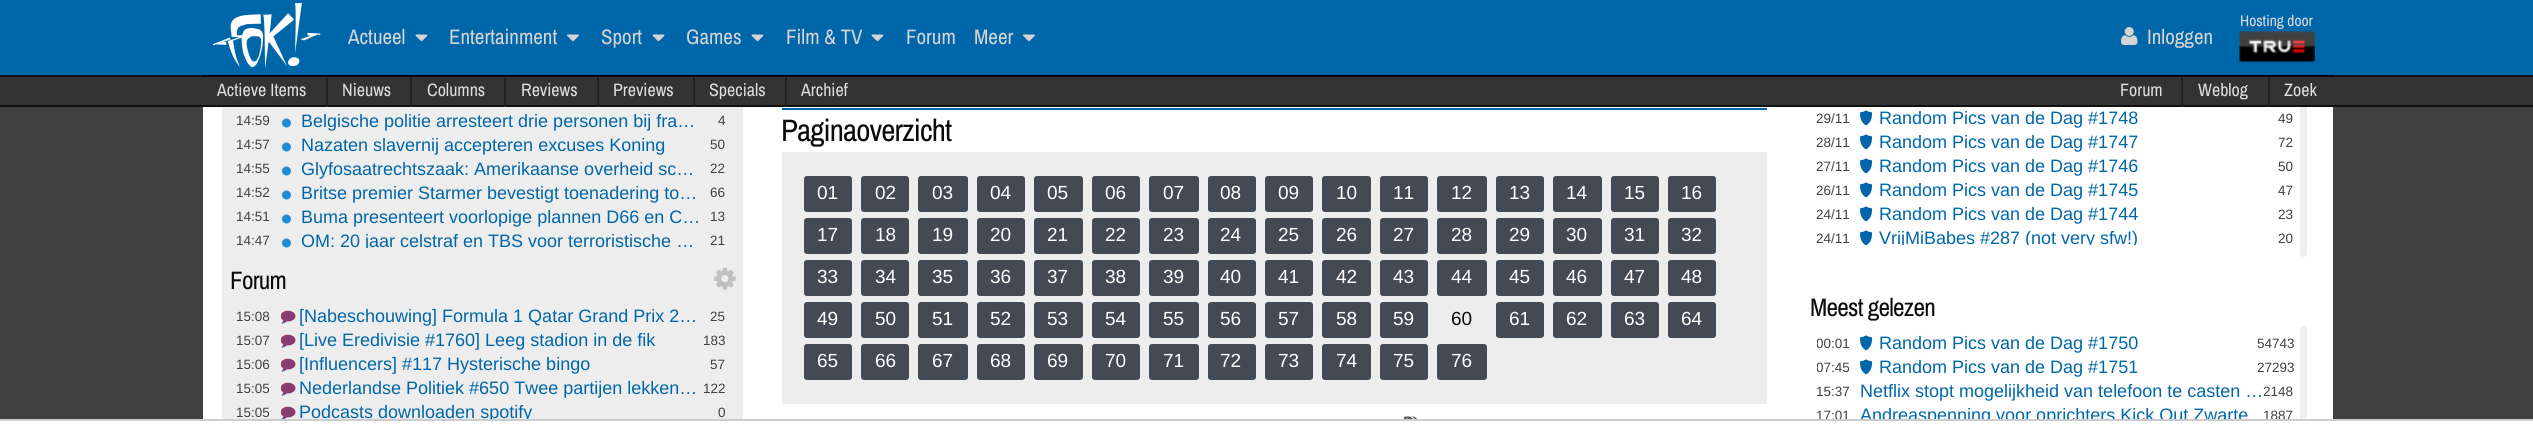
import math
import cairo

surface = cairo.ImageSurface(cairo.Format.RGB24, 2533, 435)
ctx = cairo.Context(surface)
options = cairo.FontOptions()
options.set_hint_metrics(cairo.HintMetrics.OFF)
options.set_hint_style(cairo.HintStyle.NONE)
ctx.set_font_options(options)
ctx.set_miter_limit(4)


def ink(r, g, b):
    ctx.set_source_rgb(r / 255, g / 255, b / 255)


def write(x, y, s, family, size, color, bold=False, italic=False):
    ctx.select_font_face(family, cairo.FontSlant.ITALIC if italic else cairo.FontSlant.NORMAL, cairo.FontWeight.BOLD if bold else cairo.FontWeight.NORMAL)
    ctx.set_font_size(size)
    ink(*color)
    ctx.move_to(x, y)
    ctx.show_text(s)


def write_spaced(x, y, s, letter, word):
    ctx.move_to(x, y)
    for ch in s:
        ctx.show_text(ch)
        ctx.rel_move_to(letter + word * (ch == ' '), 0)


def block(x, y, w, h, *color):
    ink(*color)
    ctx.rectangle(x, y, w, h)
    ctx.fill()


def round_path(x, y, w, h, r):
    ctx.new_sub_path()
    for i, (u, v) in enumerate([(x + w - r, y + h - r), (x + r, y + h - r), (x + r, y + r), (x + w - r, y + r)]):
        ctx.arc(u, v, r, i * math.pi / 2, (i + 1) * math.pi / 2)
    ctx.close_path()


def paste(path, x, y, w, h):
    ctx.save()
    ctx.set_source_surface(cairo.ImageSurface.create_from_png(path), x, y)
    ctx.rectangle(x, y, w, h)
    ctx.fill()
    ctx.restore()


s1 = dict(family="Archivo Narrow", size=15.5, color=(221, 221, 221))
s2 = dict(family="Archivo Narrow", size=21, color=(212, 212, 212))
s3 = dict(family="Archivo Narrow", size=18, color=(221, 221, 221))
s4 = dict(family="Liberation Sans", size=13.5, color=(64, 64, 64))
s5 = dict(family="Liberation Sans", size=18, color=(0, 102, 170))
s6 = dict(family="Liberation Sans", size=19, color=(255, 255, 255))
s7 = dict(family="Liberation Sans", size=19, color=(10, 10, 10))

ink(64, 64, 64)
ctx.paint()
block(203, 107, 2130, 312, 254, 254, 254)
ink(238, 238, 238)
round_path(2300, 5, 7, 252, 3.5)
ctx.fill()
block(0, 77, 2533, 28, 51, 51, 51)
block(0, 105, 2533, 2, 17, 17, 17)
block(326, 74, 2, 33, 34, 34, 34)
block(410, 74, 2, 33, 34, 34, 34)
block(504, 74, 2, 33, 34, 34, 34)
block(597, 74, 2, 33, 34, 34, 34)
block(693, 74, 2, 33, 34, 34, 34)
block(785, 74, 2, 33, 34, 34, 34)
block(2181, 74, 2, 33, 34, 34, 34)
block(2268, 74, 2, 33, 34, 34, 34)
block(0, 0, 2533, 75, 0, 102, 170)
block(0, 75, 2533, 2, 16, 16, 16)
block(203, 75, 2130, 2, 0, 0, 0)
paste("pic1.png", 213, 2, 108, 66)
write(2240, 26, "Hosting door", **s1)
paste("pic2.png", 2239, 31, 76, 32)
write(348, 44, "Actueel", **s2)
paste("pic3.png", 415, 34, 13, 8)
write(449, 44, "Entertainment", **s2)
paste("pic4.png", 567, 34, 12, 8)
write(601, 44, "Sport", **s2)
paste("pic3.png", 652, 34, 13, 8)
write(686, 44, "Games", **s2)
paste("pic3.png", 751, 34, 13, 8)
write(786, 44, "Film & TV", **s2)
paste("pic3.png", 871, 34, 13, 8)
write(906, 44, "Forum", **s2)
write(974, 44, "Meer", **s2)
paste("pic4.png", 1023, 34, 12, 8)
paste("pic5.png", 2121, 27, 17, 18)
write(2147, 44, "Inloggen", **s2)
write(217, 96, "Actieve Items", **s3)
write(342, 96, "Nieuws", **s3)
write(427, 96, "Columns", **s3)
write(521, 96, "Reviews", **s3)
write(613, 96, "Previews", **s3)
write(709, 96, "Specials", **s3)
write(801, 96, "Archief", **s3)
write(2120, 96, "Forum", **s3)
write(2198, 96, "Weblog", **s3)
write(2284, 96, "Zoek", **s3)
block(222, 107, 521, 312, 237, 237, 237)
write(236, 125, "14:59", **s4)
paste("pic6.png", 282, 118, 9, 10)
write(301, 127, "Belgische politie arresteert drie personen bij fra…", **s5)
write(718, 125, "4", **s4)
write(236, 149, "14:57", **s4)
paste("pic6.png", 282, 142, 9, 10)
write(301, 151, "Nazaten slavernij accepteren excuses Koning", **s5)
write(710, 149, "50", **s4)
write(236, 173, "14:55", **s4)
paste("pic6.png", 282, 166, 9, 10)
write(301, 175, "Glyfosaatrechtszaak: Amerikaanse overheid sc…", **s5)
write(710, 173, "22", **s4)
write(236, 197, "14:52", **s4)
paste("pic6.png", 282, 190, 9, 10)
write(301, 199, "Britse premier Starmer bevestigt toenadering to…", **s5)
write(710, 197, "66", **s4)
write(236, 221, "14:51", **s4)
paste("pic6.png", 282, 214, 9, 10)
write(301, 223, "Buma presenteert voorlopige plannen D66 en C…", **s5)
write(710, 221, "13", **s4)
write(236, 245, "14:47", **s4)
paste("pic6.png", 282, 238, 9, 10)
ctx.save()
ctx.rectangle(281, 233, 420, 15)
ctx.clip()
write(301, 247, "OM: 20 jaar celstraf en TBS voor terroristische …", **s5)
ctx.restore()
write(710, 245, "21", **s4)
ctx.select_font_face("Archivo Narrow")
ctx.set_font_size(25.25)
ink(10, 10, 10)
write_spaced(230, 289, "Forum", -0.75, 0)
paste("pic7.png", 714, 267, 22, 23)
write(236, 321, "15:08", **s4)
paste("pic8.png", 281, 310, 15, 14)
write(299, 322, "[Nabeschouwing] Formula 1 Qatar Grand Prix 2…", **s5)
write(710, 321, "25", **s4)
write(236, 345, "15:07", **s4)
paste("pic8.png", 281, 334, 15, 14)
write(299, 346, "[Live Eredivisie #1760] Leeg stadion in de fik", **s5)
write(703, 345, "183", **s4)
write(236, 369, "15:06", **s4)
paste("pic8.png", 281, 358, 15, 14)
write(299, 370, "[Influencers] #117 Hysterische bingo", **s5)
write(710, 369, "57", **s4)
write(236, 393, "15:05", **s4)
paste("pic8.png", 281, 382, 15, 14)
write(299, 394, "Nederlandse Politiek #650 Twee partijen lekken…", **s5)
write(703, 393, "122", **s4)
write(236, 417, "15:05", **s4)
paste("pic9.png", 281, 406, 15, 13)
write(299, 418, "Podcasts downloaden spotify", **s5)
write(718, 417, "0", **s4)
block(782, 108, 985, 2, 0, 102, 170)
ctx.select_font_face("Archivo Narrow")
ctx.set_font_size(31)
ink(10, 10, 10)
write_spaced(781, 141, "Paginaoverzicht", -0.9, 0)
block(782, 152, 985, 252, 237, 237, 237)
ink(67, 74, 84)
round_path(805, 177, 46, 34, 2)
ctx.fill_preserve()
ctx.stroke()
write(817, 199, "01", **s6)
ink(67, 74, 84)
round_path(862, 177, 46, 34, 2)
ctx.fill_preserve()
ctx.stroke()
write(875, 199, "02", **s6)
ink(67, 74, 84)
round_path(919, 177, 48, 34, 2)
ctx.fill_preserve()
ctx.stroke()
write(932, 199, "03", **s6)
ink(67, 74, 84)
round_path(978, 177, 46, 34, 2)
ctx.fill_preserve()
ctx.stroke()
write(990, 199, "04", **s6)
ink(67, 74, 84)
round_path(1035, 177, 47, 34, 2)
ctx.fill_preserve()
ctx.stroke()
write(1047, 199, "05", **s6)
ink(67, 74, 84)
round_path(1093, 177, 46, 34, 2)
ctx.fill_preserve()
ctx.stroke()
write(1105, 199, "06", **s6)
ink(67, 74, 84)
round_path(1150, 177, 48, 34, 2)
ctx.fill_preserve()
ctx.stroke()
write(1163, 199, "07", **s6)
ink(67, 74, 84)
round_path(1209, 177, 46, 34, 2)
ctx.fill_preserve()
ctx.stroke()
write(1220, 199, "08", **s6)
ink(67, 74, 84)
round_path(1266, 177, 46, 34, 2)
ctx.fill_preserve()
ctx.stroke()
write(1278, 199, "09", **s6)
ink(67, 74, 84)
round_path(1323, 177, 47, 34, 2)
ctx.fill_preserve()
ctx.stroke()
write(1336, 199, "10", **s6)
ink(67, 74, 84)
round_path(1381, 177, 46, 34, 2)
ctx.fill_preserve()
ctx.stroke()
write(1393, 199, "11", **s6)
ink(67, 74, 84)
round_path(1438, 177, 48, 34, 2)
ctx.fill_preserve()
ctx.stroke()
write(1451, 199, "12", **s6)
ink(67, 74, 84)
round_path(1497, 177, 46, 34, 2)
ctx.fill_preserve()
ctx.stroke()
write(1509, 199, "13", **s6)
ink(67, 74, 84)
round_path(1554, 177, 47, 34, 2)
ctx.fill_preserve()
ctx.stroke()
write(1566, 199, "14", **s6)
ink(67, 74, 84)
round_path(1612, 177, 46, 34, 2)
ctx.fill_preserve()
ctx.stroke()
write(1624, 199, "15", **s6)
ink(67, 74, 84)
round_path(1669, 177, 46, 34, 2)
ctx.fill_preserve()
ctx.stroke()
write(1681, 199, "16", **s6)
ink(67, 74, 84)
round_path(805, 219, 46, 34, 2)
ctx.fill_preserve()
ctx.stroke()
write(817, 241, "17", **s6)
ink(67, 74, 84)
round_path(862, 219, 46, 34, 2)
ctx.fill_preserve()
ctx.stroke()
write(875, 241, "18", **s6)
ink(67, 74, 84)
round_path(919, 219, 48, 34, 2)
ctx.fill_preserve()
ctx.stroke()
write(932, 241, "19", **s6)
ink(67, 74, 84)
round_path(978, 219, 46, 34, 2)
ctx.fill_preserve()
ctx.stroke()
write(990, 241, "20", **s6)
ink(67, 74, 84)
round_path(1035, 219, 47, 34, 2)
ctx.fill_preserve()
ctx.stroke()
write(1047, 241, "21", **s6)
ink(67, 74, 84)
round_path(1093, 219, 46, 34, 2)
ctx.fill_preserve()
ctx.stroke()
write(1105, 241, "22", **s6)
ink(67, 74, 84)
round_path(1150, 219, 48, 34, 2)
ctx.fill_preserve()
ctx.stroke()
write(1163, 241, "23", **s6)
ink(67, 74, 84)
round_path(1209, 219, 46, 34, 2)
ctx.fill_preserve()
ctx.stroke()
write(1220, 241, "24", **s6)
ink(67, 74, 84)
round_path(1266, 219, 46, 34, 2)
ctx.fill_preserve()
ctx.stroke()
write(1278, 241, "25", **s6)
ink(67, 74, 84)
round_path(1323, 219, 47, 34, 2)
ctx.fill_preserve()
ctx.stroke()
write(1336, 241, "26", **s6)
ink(67, 74, 84)
round_path(1381, 219, 46, 34, 2)
ctx.fill_preserve()
ctx.stroke()
write(1393, 241, "27", **s6)
ink(67, 74, 84)
round_path(1438, 219, 48, 34, 2)
ctx.fill_preserve()
ctx.stroke()
write(1451, 241, "28", **s6)
ink(67, 74, 84)
round_path(1497, 219, 46, 34, 2)
ctx.fill_preserve()
ctx.stroke()
write(1509, 241, "29", **s6)
ink(67, 74, 84)
round_path(1554, 219, 47, 34, 2)
ctx.fill_preserve()
ctx.stroke()
write(1566, 241, "30", **s6)
ink(67, 74, 84)
round_path(1612, 219, 46, 34, 2)
ctx.fill_preserve()
ctx.stroke()
write(1624, 241, "31", **s6)
ink(67, 74, 84)
round_path(1669, 219, 46, 34, 2)
ctx.fill_preserve()
ctx.stroke()
write(1681, 241, "32", **s6)
ink(67, 74, 84)
round_path(805, 261, 46, 34, 2)
ctx.fill_preserve()
ctx.stroke()
write(817, 283, "33", **s6)
ink(67, 74, 84)
round_path(862, 261, 46, 34, 2)
ctx.fill_preserve()
ctx.stroke()
write(875, 283, "34", **s6)
ink(67, 74, 84)
round_path(919, 261, 48, 34, 2)
ctx.fill_preserve()
ctx.stroke()
write(932, 283, "35", **s6)
ink(67, 74, 84)
round_path(978, 261, 46, 34, 2)
ctx.fill_preserve()
ctx.stroke()
write(990, 283, "36", **s6)
ink(67, 74, 84)
round_path(1035, 261, 47, 34, 2)
ctx.fill_preserve()
ctx.stroke()
write(1047, 283, "37", **s6)
ink(67, 74, 84)
round_path(1093, 261, 46, 34, 2)
ctx.fill_preserve()
ctx.stroke()
write(1105, 283, "38", **s6)
ink(67, 74, 84)
round_path(1150, 261, 48, 34, 2)
ctx.fill_preserve()
ctx.stroke()
write(1163, 283, "39", **s6)
ink(67, 74, 84)
round_path(1209, 261, 46, 34, 2)
ctx.fill_preserve()
ctx.stroke()
write(1220, 283, "40", **s6)
ink(67, 74, 84)
round_path(1266, 261, 46, 34, 2)
ctx.fill_preserve()
ctx.stroke()
write(1278, 283, "41", **s6)
ink(67, 74, 84)
round_path(1323, 261, 47, 34, 2)
ctx.fill_preserve()
ctx.stroke()
write(1336, 283, "42", **s6)
ink(67, 74, 84)
round_path(1381, 261, 46, 34, 2)
ctx.fill_preserve()
ctx.stroke()
write(1393, 283, "43", **s6)
ink(67, 74, 84)
round_path(1438, 261, 48, 34, 2)
ctx.fill_preserve()
ctx.stroke()
write(1451, 283, "44", **s6)
ink(67, 74, 84)
round_path(1497, 261, 46, 34, 2)
ctx.fill_preserve()
ctx.stroke()
write(1509, 283, "45", **s6)
ink(67, 74, 84)
round_path(1554, 261, 47, 34, 2)
ctx.fill_preserve()
ctx.stroke()
write(1566, 283, "46", **s6)
ink(67, 74, 84)
round_path(1612, 261, 46, 34, 2)
ctx.fill_preserve()
ctx.stroke()
write(1624, 283, "47", **s6)
ink(67, 74, 84)
round_path(1669, 261, 46, 34, 2)
ctx.fill_preserve()
ctx.stroke()
write(1681, 283, "48", **s6)
ink(67, 74, 84)
round_path(805, 303, 46, 34, 2)
ctx.fill_preserve()
ctx.stroke()
write(817, 325, "49", **s6)
ink(67, 74, 84)
round_path(862, 303, 46, 34, 2)
ctx.fill_preserve()
ctx.stroke()
write(875, 325, "50", **s6)
ink(67, 74, 84)
round_path(919, 303, 48, 34, 2)
ctx.fill_preserve()
ctx.stroke()
write(932, 325, "51", **s6)
ink(67, 74, 84)
round_path(978, 303, 46, 34, 2)
ctx.fill_preserve()
ctx.stroke()
write(990, 325, "52", **s6)
ink(67, 74, 84)
round_path(1035, 303, 47, 34, 2)
ctx.fill_preserve()
ctx.stroke()
write(1047, 325, "53", **s6)
ink(67, 74, 84)
round_path(1093, 303, 46, 34, 2)
ctx.fill_preserve()
ctx.stroke()
write(1105, 325, "54", **s6)
ink(67, 74, 84)
round_path(1150, 303, 48, 34, 2)
ctx.fill_preserve()
ctx.stroke()
write(1163, 325, "55", **s6)
ink(67, 74, 84)
round_path(1209, 303, 46, 34, 2)
ctx.fill_preserve()
ctx.stroke()
write(1220, 325, "56", **s6)
ink(67, 74, 84)
round_path(1266, 303, 46, 34, 2)
ctx.fill_preserve()
ctx.stroke()
write(1278, 325, "57", **s6)
ink(67, 74, 84)
round_path(1323, 303, 47, 34, 2)
ctx.fill_preserve()
ctx.stroke()
write(1336, 325, "58", **s6)
ink(67, 74, 84)
round_path(1381, 303, 46, 34, 2)
ctx.fill_preserve()
ctx.stroke()
write(1393, 325, "59", **s6)
write(1451, 325, "60", **s7)
ink(67, 74, 84)
round_path(1497, 303, 46, 34, 2)
ctx.fill_preserve()
ctx.stroke()
write(1509, 325, "61", **s6)
ink(67, 74, 84)
round_path(1554, 303, 47, 34, 2)
ctx.fill_preserve()
ctx.stroke()
write(1566, 325, "62", **s6)
ink(67, 74, 84)
round_path(1612, 303, 46, 34, 2)
ctx.fill_preserve()
ctx.stroke()
write(1624, 325, "63", **s6)
ink(67, 74, 84)
round_path(1669, 303, 46, 34, 2)
ctx.fill_preserve()
ctx.stroke()
write(1681, 325, "64", **s6)
ink(67, 74, 84)
round_path(805, 345, 46, 34, 2)
ctx.fill_preserve()
ctx.stroke()
write(817, 367, "65", **s6)
ink(67, 74, 84)
round_path(862, 345, 46, 34, 2)
ctx.fill_preserve()
ctx.stroke()
write(875, 367, "66", **s6)
ink(67, 74, 84)
round_path(919, 345, 48, 34, 2)
ctx.fill_preserve()
ctx.stroke()
write(932, 367, "67", **s6)
ink(67, 74, 84)
round_path(978, 345, 46, 34, 2)
ctx.fill_preserve()
ctx.stroke()
write(990, 367, "68", **s6)
ink(67, 74, 84)
round_path(1035, 345, 47, 34, 2)
ctx.fill_preserve()
ctx.stroke()
write(1047, 367, "69", **s6)
ink(67, 74, 84)
round_path(1093, 345, 46, 34, 2)
ctx.fill_preserve()
ctx.stroke()
write(1105, 367, "70", **s6)
ink(67, 74, 84)
round_path(1150, 345, 48, 34, 2)
ctx.fill_preserve()
ctx.stroke()
write(1163, 367, "71", **s6)
ink(67, 74, 84)
round_path(1209, 345, 46, 34, 2)
ctx.fill_preserve()
ctx.stroke()
write(1220, 367, "72", **s6)
ink(67, 74, 84)
round_path(1266, 345, 46, 34, 2)
ctx.fill_preserve()
ctx.stroke()
write(1278, 367, "73", **s6)
ink(67, 74, 84)
round_path(1323, 345, 47, 34, 2)
ctx.fill_preserve()
ctx.stroke()
write(1336, 367, "74", **s6)
ink(67, 74, 84)
round_path(1381, 345, 46, 34, 2)
ctx.fill_preserve()
ctx.stroke()
write(1393, 367, "75", **s6)
ink(67, 74, 84)
round_path(1438, 345, 48, 34, 2)
ctx.fill_preserve()
ctx.stroke()
write(1451, 367, "76", **s6)
paste("pic10.png", 1404, 416, 13, 3)
write(1816, 123, "29/11", **s4)
paste("pic11.png", 1860, 110, 13, 16)
write(1879, 124, "Random Pics van de Dag #1748", **s5)
write(2278, 123, "49", **s4)
write(1816, 147, "28/11", **s4)
paste("pic11.png", 1860, 134, 13, 16)
write(1879, 148, "Random Pics van de Dag #1747", **s5)
write(2278, 147, "72", **s4)
write(1816, 171, "27/11", **s4)
paste("pic11.png", 1860, 158, 13, 16)
write(1879, 172, "Random Pics van de Dag #1746", **s5)
write(2278, 171, "50", **s4)
write(1816, 195, "26/11", **s4)
paste("pic11.png", 1860, 182, 13, 16)
write(1879, 196, "Random Pics van de Dag #1745", **s5)
write(2278, 195, "47", **s4)
write(1816, 219, "24/11", **s4)
paste("pic11.png", 1860, 206, 13, 16)
write(1879, 220, "Random Pics van de Dag #1744", **s5)
write(2278, 219, "23", **s4)
write(1816, 243, "24/11", **s4)
paste("pic12.png", 1860, 230, 13, 15)
ctx.save()
ctx.rectangle(1860, 230, 408, 15)
ctx.clip()
write(1879, 244, "VrijMiBabes #287 (not very sfw!)", **s5)
ctx.restore()
write(2278, 243, "20", **s4)
ctx.select_font_face("Archivo Narrow")
ctx.set_font_size(25.25)
ink(10, 10, 10)
write_spaced(1810, 316, "Meest gelezen", -0.75, 0)
ctx.save()
ctx.rectangle(1817, 335, 493, 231)
ctx.clip()
write(1816, 348, "00:01", **s4)
ctx.restore()
paste("pic11.png", 1860, 335, 13, 16)
write(1879, 349, "Random Pics van de Dag #1750", **s5)
write(2257, 348, "54743", **s4)
ctx.save()
ctx.rectangle(1817, 335, 493, 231)
ctx.clip()
write(1816, 372, "07:45", **s4)
ctx.restore()
paste("pic11.png", 1860, 359, 13, 16)
write(1879, 373, "Random Pics van de Dag #1751", **s5)
write(2257, 372, "27293", **s4)
write(1816, 396, "15:37", **s4)
write(1860, 397, "Netflix stopt mogelijkheid van telefoon te casten …", **s5)
write(2263, 396, "2148", **s4)
write(1816, 420, "17:01", **s4)
write(1860, 421, "Andreaspenning voor oprichters Kick Out Zwarte", **s5)
write(2263, 420, "1887", **s4)
ink(238, 238, 238)
round_path(2300, 326, 7, 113, 3.5)
ctx.fill()
block(0, 421, 2533, 14, 255, 255, 255)
block(0, 419, 2533, 2, 204, 204, 204)
surface.write_to_png("screenshot.png")
